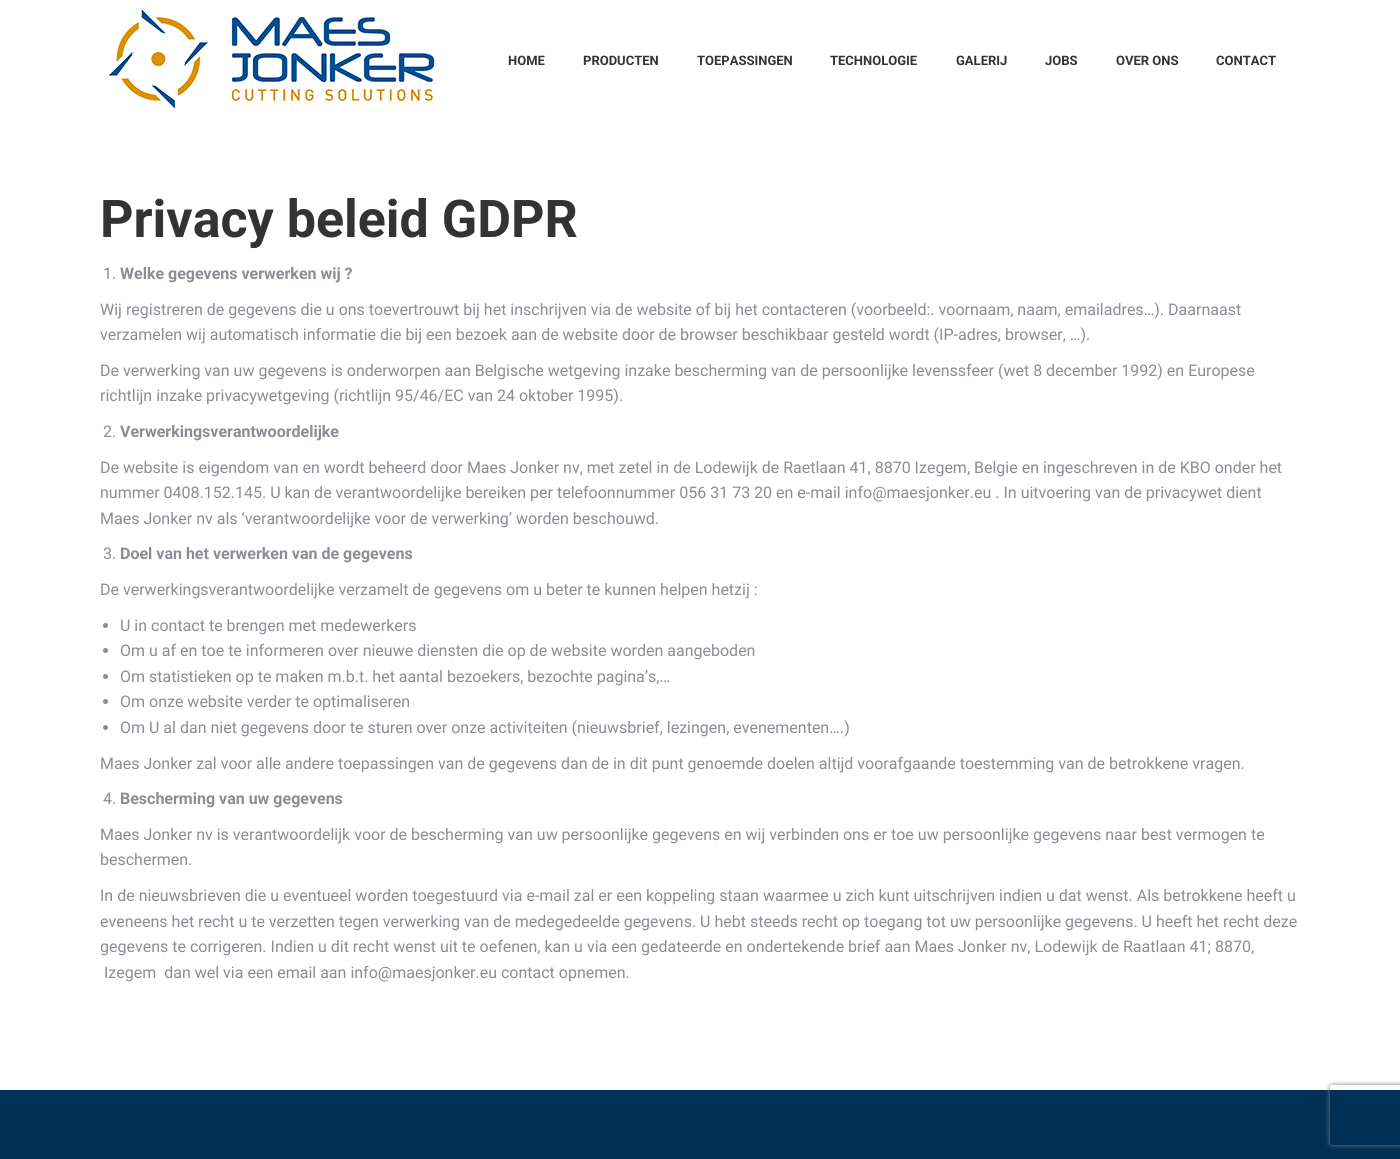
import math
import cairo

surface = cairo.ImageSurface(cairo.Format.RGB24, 1400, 1159)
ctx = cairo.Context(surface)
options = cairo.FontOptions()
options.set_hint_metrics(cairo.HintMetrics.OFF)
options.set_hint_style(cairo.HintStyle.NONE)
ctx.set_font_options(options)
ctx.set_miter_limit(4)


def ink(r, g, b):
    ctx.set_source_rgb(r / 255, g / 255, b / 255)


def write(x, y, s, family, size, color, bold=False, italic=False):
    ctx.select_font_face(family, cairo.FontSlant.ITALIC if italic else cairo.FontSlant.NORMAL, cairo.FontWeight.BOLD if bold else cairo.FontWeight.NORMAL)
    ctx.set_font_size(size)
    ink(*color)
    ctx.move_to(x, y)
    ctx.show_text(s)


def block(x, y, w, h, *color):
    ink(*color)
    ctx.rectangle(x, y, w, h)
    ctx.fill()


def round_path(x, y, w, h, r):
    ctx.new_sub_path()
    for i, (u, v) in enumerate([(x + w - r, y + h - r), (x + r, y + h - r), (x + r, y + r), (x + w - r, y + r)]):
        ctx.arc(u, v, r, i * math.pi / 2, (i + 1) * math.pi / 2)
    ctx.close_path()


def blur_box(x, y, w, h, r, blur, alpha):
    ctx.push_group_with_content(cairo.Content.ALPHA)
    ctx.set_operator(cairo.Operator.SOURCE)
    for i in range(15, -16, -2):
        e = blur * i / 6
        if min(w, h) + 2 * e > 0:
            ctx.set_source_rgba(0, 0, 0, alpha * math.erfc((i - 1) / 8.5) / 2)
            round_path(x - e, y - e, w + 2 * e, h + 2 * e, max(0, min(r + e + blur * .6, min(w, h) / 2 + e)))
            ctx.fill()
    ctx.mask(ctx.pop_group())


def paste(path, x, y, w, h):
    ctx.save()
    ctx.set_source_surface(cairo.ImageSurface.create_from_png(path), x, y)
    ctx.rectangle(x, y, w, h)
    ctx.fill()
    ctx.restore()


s1 = dict(family="Roboto", size=13, color=(51, 51, 51), bold=True)
s2 = dict(family="Roboto", size=52, color=(51, 51, 51), bold=True)
s3 = dict(family="Roboto", size=16, color=(139, 141, 148))
s4 = dict(family="Roboto", size=16, color=(139, 141, 148), bold=True)

ink(255, 255, 255)
ctx.paint()
paste("pic1.png", 109, 9, 326, 100)
write(508, 65, "HOME", **s1)
write(583, 65, "PRODUCTEN", **s1)
write(697, 65, "TOEPASSINGEN", **s1)
write(830, 65, "TECHNOLOGIE", **s1)
write(956, 65, "GALERIJ", **s1)
write(1045, 65, "JOBS", **s1)
write(1116, 65, "OVER ONS", **s1)
write(1216, 65, "CONTACT", **s1)
write(100, 237, "Privacy beleid GDPR", **s2)
write(103, 279, "1.", **s3)
write(120, 279, "Welke gegevens verwerken wij ?", **s4)
write(100, 315, "Wij registreren de gegevens die u ons toevertrouwt bij het inschrijven via de website of bij het contacteren (voorbeeld:. voornaam, naam, emailadres…). Daarnaast", **s3)
write(100, 340, "verzamelen wij automatisch informatie die bij een bezoek aan de website door de browser beschikbaar gesteld wordt (IP-adres, browser, …).", **s3)
write(100, 376, "De verwerking van uw gegevens is onderworpen aan Belgische wetgeving inzake bescherming van de persoonlijke levenssfeer (wet 8 december 1992) en Europese", **s3)
write(100, 401, "richtlijn inzake privacywetgeving (richtlijn 95/46/EC van 24 oktober 1995).", **s3)
write(103, 437, "2.", **s3)
write(120, 437, "Verwerkingsverantwoordelijke", **s4)
write(100, 473, "De website is eigendom van en wordt beheerd door Maes Jonker nv, met zetel in de Lodewijk de Raetlaan 41, 8870 Izegem, Belgie en ingeschreven in de KBO onder het", **s3)
write(100, 498, "nummer 0408.152.145. U kan de verantwoordelijke bereiken per telefoonnummer 056 31 73 20 en e-mail info@maesjonker.eu . In uitvoering van de privacywet dient", **s3)
write(100, 524, "Maes Jonker nv als ‘verantwoordelijke voor de verwerking’ worden beschouwd.", **s3)
write(103, 559, "3.", **s3)
write(120, 559, "Doel van het verwerken van de gegevens", **s4)
write(100, 595, "De verwerkingsverantwoordelijke verzamelt de gegevens om u beter te kunnen helpen hetzij :", **s3)
ctx.new_path()
ctx.arc(105.5, 625.5, 2.5, 0, 2 * math.pi)
ctx.fill()
write(120, 631, "U in contact te brengen met medewerkers", **s3)
ctx.new_path()
ctx.arc(105.5, 650.5, 2.5, 0, 2 * math.pi)
ctx.fill()
write(120, 656, "Om u af en toe te informeren over nieuwe diensten die op de website worden aangeboden", **s3)
ctx.new_path()
ctx.arc(105.5, 676.5, 2.5, 0, 2 * math.pi)
ctx.fill()
write(120, 682, "Om statistieken op te maken m.b.t. het aantal bezoekers, bezochte pagina’s,…", **s3)
ctx.new_path()
ctx.arc(105.5, 701.5, 2.5, 0, 2 * math.pi)
ctx.fill()
write(120, 707, "Om onze website verder te optimaliseren", **s3)
ctx.new_path()
ctx.arc(105.5, 727.5, 2.5, 0, 2 * math.pi)
ctx.fill()
write(120, 733, "Om U al dan niet gegevens door te sturen over onze activiteiten (nieuwsbrief, lezingen, evenementen….)", **s3)
write(100, 769, "Maes Jonker zal voor alle andere toepassingen van de gegevens dan de in dit punt genoemde doelen altijd voorafgaande toestemming van de betrokkene vragen.", **s3)
write(103, 804, "4.", **s3)
write(120, 804, "Bescherming van uw gegevens", **s4)
write(100, 840, "Maes Jonker nv is verantwoordelijk voor de bescherming van uw persoonlijke gegevens en wij verbinden ons er toe uw persoonlijke gegevens naar best vermogen te", **s3)
write(100, 865, "beschermen.", **s3)
write(100, 901, "In de nieuwsbrieven die u eventueel worden toegestuurd via e-mail zal er een koppeling staan waarmee u zich kunt uitschrijven indien u dat wenst. Als betrokkene heeft u", **s3)
write(100, 927, "eveneens het recht u te verzetten tegen verwerking van de medegedeelde gegevens. U hebt steeds recht op toegang tot uw persoonlijke gegevens. U heeft het recht deze", **s3)
write(100, 952, "gegevens te corrigeren. Indien u dit recht wenst uit te oefenen, kan u via een gedateerde en ondertekende brief aan Maes Jonker nv, Lodewijk de Raatlaan 41; 8870,", **s3)
write(104, 978, "Izegem  dan wel via een email aan info@maesjonker.eu contact opnemen.", **s3)
block(0, 1090, 1400, 69, 0, 48, 86)
ctx.save()
ctx.set_fill_rule(cairo.FillRule.EVEN_ODD)
ctx.new_path()
ctx.move_to(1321, 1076)
ctx.line_to(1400, 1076)
ctx.line_to(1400, 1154)
ctx.line_to(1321, 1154)
ctx.close_path()
ctx.move_to(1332, 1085)
ctx.line_to(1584, 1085)
ctx.curve_to(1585, 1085, 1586, 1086, 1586, 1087)
ctx.line_to(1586, 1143)
ctx.curve_to(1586, 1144, 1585, 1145, 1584, 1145)
ctx.line_to(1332, 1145)
ctx.curve_to(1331, 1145, 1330, 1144, 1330, 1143)
ctx.line_to(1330, 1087)
ctx.curve_to(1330, 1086, 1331, 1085, 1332, 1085)
ctx.close_path()
ctx.clip()
ink(128, 128, 128)
blur_box(1330, 1085, 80, 60, 2, 2.5, 1)
ctx.restore()
surface.write_to_png("screenshot.png")
